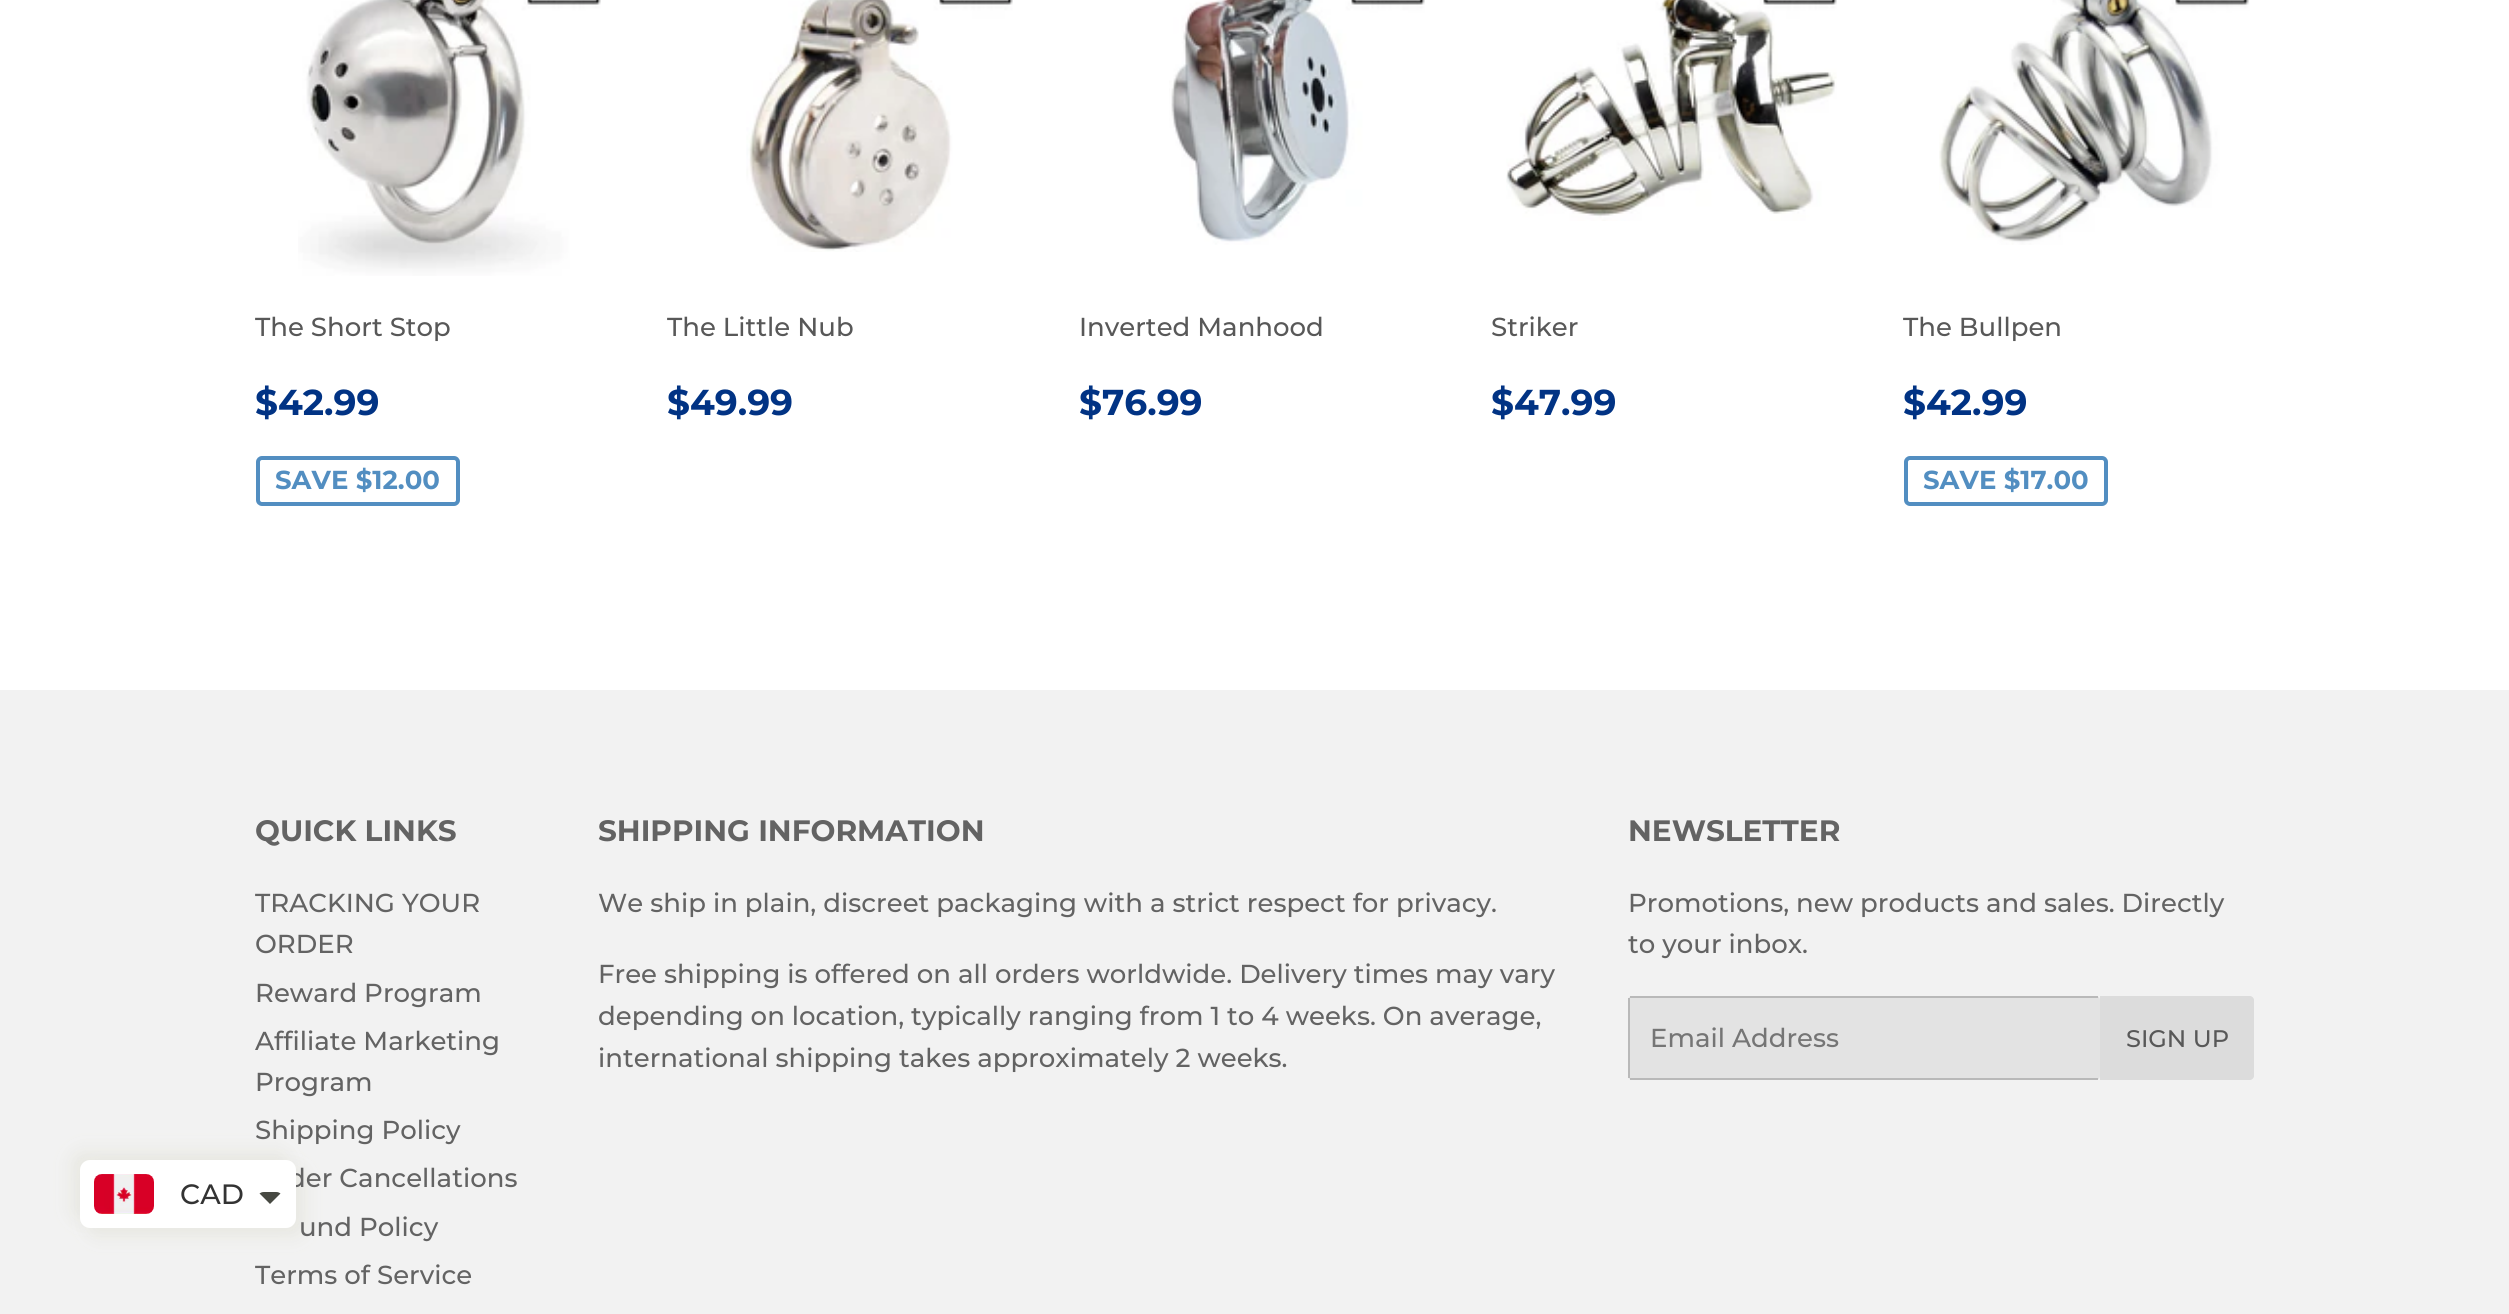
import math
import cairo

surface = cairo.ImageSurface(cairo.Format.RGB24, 2509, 1314)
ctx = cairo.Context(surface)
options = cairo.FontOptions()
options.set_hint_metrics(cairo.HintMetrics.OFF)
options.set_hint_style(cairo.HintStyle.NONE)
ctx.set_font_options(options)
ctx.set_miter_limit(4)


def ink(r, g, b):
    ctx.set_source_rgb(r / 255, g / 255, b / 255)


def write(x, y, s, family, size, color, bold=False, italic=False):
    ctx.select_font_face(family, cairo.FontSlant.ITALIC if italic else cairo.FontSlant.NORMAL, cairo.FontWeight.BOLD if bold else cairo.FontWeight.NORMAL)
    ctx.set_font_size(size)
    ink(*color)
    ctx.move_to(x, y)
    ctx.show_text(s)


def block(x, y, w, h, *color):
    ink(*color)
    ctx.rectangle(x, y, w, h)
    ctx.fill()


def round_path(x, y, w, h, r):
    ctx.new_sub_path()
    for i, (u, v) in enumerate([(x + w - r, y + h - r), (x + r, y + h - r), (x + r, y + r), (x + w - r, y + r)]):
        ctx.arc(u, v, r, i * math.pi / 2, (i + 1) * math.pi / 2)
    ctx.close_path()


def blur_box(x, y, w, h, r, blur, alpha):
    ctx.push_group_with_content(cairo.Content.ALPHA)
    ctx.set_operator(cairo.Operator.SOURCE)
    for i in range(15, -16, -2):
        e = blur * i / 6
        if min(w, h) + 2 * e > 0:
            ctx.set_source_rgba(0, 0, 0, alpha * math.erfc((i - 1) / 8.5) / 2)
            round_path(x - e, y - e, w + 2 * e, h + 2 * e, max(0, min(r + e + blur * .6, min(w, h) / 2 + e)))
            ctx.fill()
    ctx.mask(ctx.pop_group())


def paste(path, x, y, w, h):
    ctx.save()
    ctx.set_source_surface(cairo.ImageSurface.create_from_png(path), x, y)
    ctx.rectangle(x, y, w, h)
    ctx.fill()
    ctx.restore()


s1 = dict(family="Montserrat Medium", size=26, color=(88, 88, 88))
s2 = dict(family="Montserrat", size=36, color=(1, 51, 132), bold=True)
s3 = dict(family="Montserrat", size=26, color=(82, 142, 193), bold=True)
s4 = dict(family="Montserrat Medium", size=26, color=(99, 99, 99))
s5 = dict(family="Montserrat Medium", size=28, color=(51, 51, 51))
s6 = dict(family="Montserrat", size=29.5, color=(99, 99, 99), bold=True)
s7 = dict(family="Montserrat Medium", size=26, color=(117, 117, 117))
s8 = dict(family="Montserrat Medium", size=24, color=(88, 88, 88))

ink(255, 255, 255)
ctx.paint()
paste("pic1.png", 298, 0, 303, 276)
write(255, 336, "The Short Stop", **s1)
write(255, 415, "$42.99", **s2)
round_path(258, 458, 200, 46, 4)
ink(82, 142, 193)
ctx.set_line_width(4)
ctx.stroke()
write(275, 489, "SAVE $12.00", **s3)
paste("pic2.png", 746, 0, 267, 252)
write(667, 336, "The Little Nub", **s1)
write(667, 415, "$49.99", **s2)
paste("pic3.png", 1169, 0, 256, 245)
write(1079, 336, "Inverted Manhood", **s1)
write(1079, 415, "$76.99", **s2)
paste("pic4.png", 1506, 0, 331, 221)
write(1491, 336, "Striker", **s1)
write(1491, 415, "$47.99", **s2)
paste("pic5.png", 1939, 0, 311, 245)
write(1903, 336, "The Bullpen", **s1)
write(1903, 415, "$42.99", **s2)
round_path(1906, 458, 200, 46, 4)
ink(82, 142, 193)
ctx.stroke()
write(1923, 489, "SAVE $17.00", **s3)
block(0, 690, 2509, 624, 242, 242, 242)
ink(232, 232, 226)
blur_box(72, 1152, 216, 68, 10, 9, 1)
blur_box(88, 1168, 216, 68, 10, 9, 1)
write(288, 1187, "der Cancellations", **s4)
ink(255, 255, 255)
round_path(80, 1160, 216, 68, 10)
ctx.fill()
paste("pic6.png", 94, 1174, 60, 40)
write(180, 1204, "CAD", **s5)
ink(71, 73, 66)
ctx.new_path()
ctx.move_to(264, 1192)
ctx.curve_to(262, 1192, 261, 1192.5, 259.5, 1193.5)
ctx.line_to(270, 1204)
ctx.line_to(280.5, 1193.5)
ctx.curve_to(279, 1192.5, 278, 1192, 276, 1192)
ctx.close_path()
ctx.fill()
write(255, 841, "QUICK LINKS", **s6)
write(255, 912, "TRACKING YOUR", **s4)
write(255, 953, "ORDER", **s4)
write(255, 1002, "Reward Program", **s4)
write(255, 1050, "Affiliate Marketing", **s4)
write(255, 1091, "Program", **s4)
write(255, 1139, "Shipping Policy", **s4)
write(299, 1236, "und Policy", **s4)
write(255, 1284, "Terms of Service", **s4)
write(598, 841, "SHIPPING INFORMATION", **s6)
write(598, 912, "We ship in plain, discreet packaging with a strict respect for privacy.", **s4)
write(598, 983, "Free shipping is offered on all orders worldwide. Delivery times may vary", **s4)
write(598, 1025, "depending on location, typically ranging from 1 to 4 weeks. On average,", **s4)
write(598, 1067, "international shipping takes approximately 2 weeks.", **s4)
write(1628, 841, "NEWSLETTER", **s6)
write(1628, 912, "Promotions, new products and sales. Directly", **s4)
write(1628, 953, "to your inbox.", **s4)
ink(227, 227, 227)
round_path(1628, 996, 472, 84, 4)
ctx.fill()
block(1630, 996, 468, 2, 185, 185, 185)
block(1630, 1078, 468, 2, 185, 185, 185)
block(1628, 998, 2, 80, 185, 185, 185)
write(1650, 1047, "Email Address", **s7)
ink(220, 220, 220)
ctx.new_path()
ctx.move_to(2100, 996)
ctx.line_to(2250, 996)
ctx.curve_to(2252, 996, 2254, 998, 2254, 1000)
ctx.line_to(2254, 1076)
ctx.curve_to(2254, 1078, 2252, 1080, 2250, 1080)
ctx.line_to(2100, 1080)
ctx.close_path()
ctx.fill()
write(2126, 1047, "SIGN UP", **s8)
surface.write_to_png("screenshot.png")
